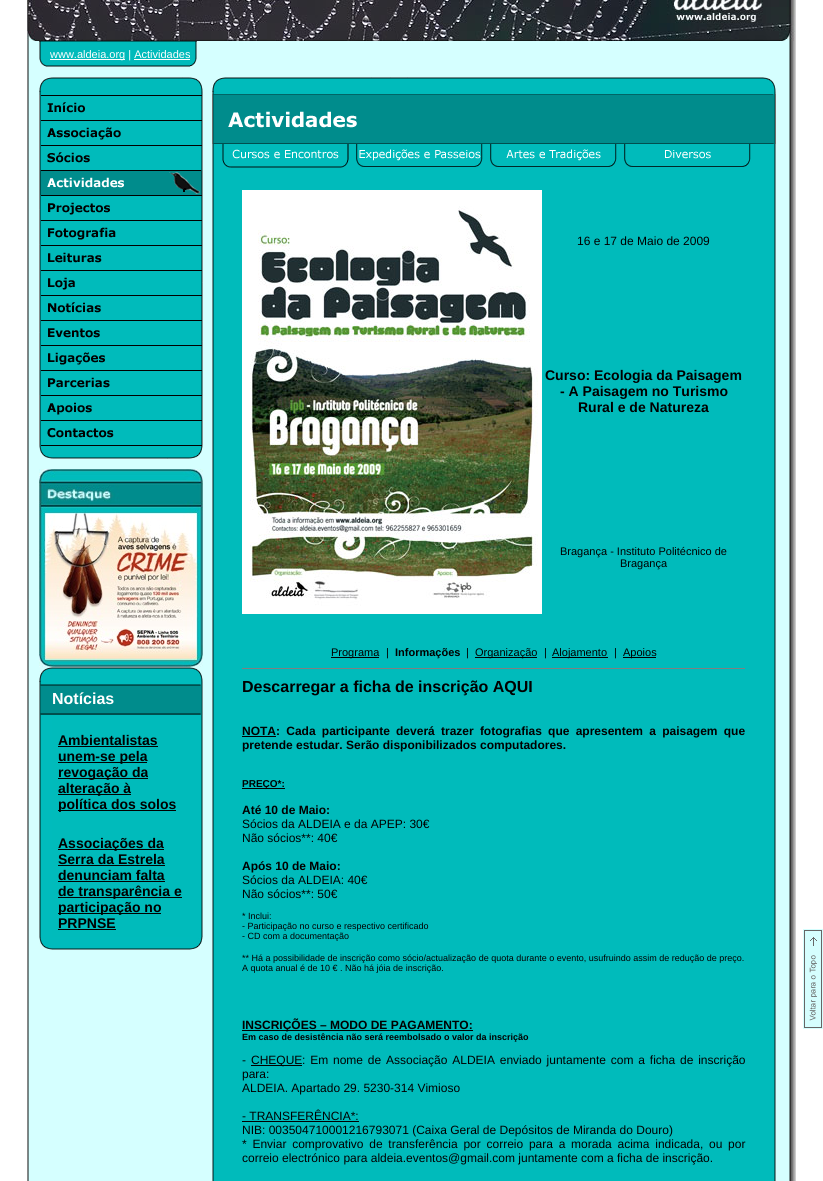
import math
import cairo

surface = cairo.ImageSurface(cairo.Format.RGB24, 823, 1181)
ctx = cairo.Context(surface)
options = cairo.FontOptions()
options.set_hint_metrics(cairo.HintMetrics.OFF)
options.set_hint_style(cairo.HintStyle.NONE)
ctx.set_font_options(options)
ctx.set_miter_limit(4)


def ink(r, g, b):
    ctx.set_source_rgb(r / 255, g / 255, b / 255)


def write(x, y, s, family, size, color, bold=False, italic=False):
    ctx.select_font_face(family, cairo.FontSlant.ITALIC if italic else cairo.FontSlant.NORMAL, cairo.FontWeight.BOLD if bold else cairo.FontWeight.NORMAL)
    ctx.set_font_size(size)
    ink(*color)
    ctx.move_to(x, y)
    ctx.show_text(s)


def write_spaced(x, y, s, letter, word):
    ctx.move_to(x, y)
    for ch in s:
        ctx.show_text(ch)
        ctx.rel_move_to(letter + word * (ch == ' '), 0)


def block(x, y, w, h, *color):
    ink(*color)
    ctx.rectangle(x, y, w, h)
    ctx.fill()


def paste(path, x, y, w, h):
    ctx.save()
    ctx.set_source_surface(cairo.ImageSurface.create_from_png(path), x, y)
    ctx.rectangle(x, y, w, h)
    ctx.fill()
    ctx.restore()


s1 = dict(family="Liberation Sans", size=11, color=(255, 255, 255))
s2 = dict(family="Liberation Sans", size=16, color=(255, 255, 255), bold=True)
s3 = dict(family="Liberation Sans", size=14, color=(0, 0, 0), bold=True)
s4 = dict(family="Liberation Sans", size=12, color=(0, 0, 0))
s5 = dict(family="Liberation Sans", size=11, color=(0, 0, 0))
s6 = dict(family="Liberation Sans", size=11, color=(0, 0, 0), bold=True)
s7 = dict(family="Liberation Sans", size=16, color=(0, 0, 0), bold=True)
s8 = dict(family="Liberation Sans", size=12, color=(0, 0, 0), bold=True)
s9 = dict(family="Liberation Sans", size=10, color=(0, 0, 0), bold=True)
s10 = dict(family="Liberation Sans", size=9, color=(0, 0, 0))
s11 = dict(family="Liberation Sans", size=9, color=(0, 0, 0), bold=True)

ink(255, 255, 255)
ctx.paint()
paste("pic1.png", 27, 0, 769, 41)
paste("pic2.png", 27, 41, 12, 26)
block(197, 41, 581, 26, 213, 255, 255)
paste("pic3.png", 39, 41, 7, 26)
paste("pic4.png", 46, 41, 144, 26)
block(50, 59, 75, 1, 255, 255, 255)
write(50, 58, "www.aldeia.org | Actividades", **s1)
block(134, 59, 56, 1, 255, 255, 255)
paste("pic5.png", 190, 41, 7, 26)
paste("pic6.png", 778, 41, 18, 26)
paste("pic7.png", 27, 67, 12, 1114)
block(39, 67, 739, 1114, 213, 255, 255)
paste("pic8.png", 39, 77, 164, 18)
paste("pic9.png", 39, 95, 164, 25)
paste("pic10.png", 39, 120, 164, 25)
paste("pic11.png", 39, 145, 164, 25)
paste("pic12.png", 39, 170, 164, 25)
paste("pic13.png", 39, 195, 164, 25)
paste("pic14.png", 39, 220, 164, 25)
paste("pic15.png", 39, 245, 164, 25)
paste("pic16.png", 39, 270, 164, 25)
paste("pic17.png", 39, 295, 164, 25)
paste("pic18.png", 39, 320, 164, 25)
paste("pic19.png", 39, 345, 164, 25)
paste("pic20.png", 39, 370, 164, 25)
paste("pic21.png", 39, 395, 164, 25)
paste("pic22.png", 39, 420, 164, 25)
paste("pic23.png", 39, 445, 164, 14)
paste("pic24.png", 39, 469, 164, 198)
paste("pic25.png", 39, 667, 13, 19)
paste("pic26.png", 52, 667, 138, 19)
paste("pic27.png", 190, 667, 13, 19)
paste("pic28.png", 39, 686, 13, 27)
block(52, 686, 138, 27, 0, 140, 140)
write(52, 704, "Notícias", **s2)
paste("pic29.png", 190, 686, 13, 27)
paste("pic30.png", 39, 713, 13, 2)
block(52, 713, 138, 2, 0, 79, 78)
paste("pic31.png", 190, 713, 13, 2)
paste("pic32.png", 39, 715, 13, 222)
block(52, 715, 138, 222, 0, 187, 187)
write(58, 745, "Ambientalistas", **s3)
block(58, 746, 100, 1, 0, 0, 0)
block(58, 762, 89, 1, 0, 0, 0)
write(58, 761, "unem-se pela", **s3)
block(58, 778, 90, 1, 0, 0, 0)
write(58, 777, "revogação da", **s3)
block(58, 794, 73, 1, 0, 0, 0)
write(58, 793, "alteração à", **s3)
block(58, 810, 118, 1, 0, 0, 0)
write(58, 809, "política dos solos", **s3)
block(58, 849, 106, 1, 0, 0, 0)
write(58, 848, "Associações da", **s3)
write(58, 864, "Serra da Estrela", **s3)
block(58, 865, 107, 1, 0, 0, 0)
write(58, 880, "denunciam falta", **s3)
block(58, 881, 107, 1, 0, 0, 0)
block(58, 897, 124, 1, 0, 0, 0)
write(58, 896, "de transparência e", **s3)
block(58, 913, 103, 1, 0, 0, 0)
write(58, 912, "participação no", **s3)
write(58, 928, "PRPNSE", **s3)
block(58, 929, 58, 1, 0, 0, 0)
paste("pic33.png", 190, 715, 13, 222)
paste("pic34.png", 39, 937, 13, 13)
paste("pic35.png", 52, 937, 138, 13)
paste("pic36.png", 190, 937, 13, 13)
paste("pic37.png", 212, 77, 564, 17)
paste("pic38.png", 212, 94, 564, 50)
paste("pic39.png", 212, 144, 564, 24)
paste("pic40.png", 222, 144, 127, 24)
paste("pic41.png", 356, 144, 127, 23)
paste("pic42.png", 490, 144, 127, 23)
paste("pic43.png", 624, 144, 127, 23)
paste("pic44.png", 212, 168, 564, 1013)
paste("pic45.png", 242, 190, 300, 424)
write(577, 245, "16 e 17 de Maio de 2009", **s4)
write(545, 380, "Curso: Ecologia da Paisagem", **s3)
write(560, 396, "- A Paisagem no Turismo", **s3)
write(578, 412, "Rural e de Natureza", **s3)
write(560, 555, "Bragança - Instituto Politécnico de", **s5)
write(620, 567, "Bragança", **s5)
block(331, 657, 48, 1, 0, 0, 0)
write(331, 656, "Programa", **s5)
write(386, 656, "|", **s5)
write(395, 656, "Informações", **s6)
write(466, 656, "|", **s5)
block(475, 657, 62, 1, 0, 0, 0)
write(475, 656, "Organização", **s5)
write(544, 656, "|", **s5)
block(552, 657, 56, 1, 0, 0, 0)
write(552, 656, "Alojamento", **s5)
write(614, 656, "|", **s5)
block(623, 657, 33, 1, 0, 0, 0)
write(623, 656, "Apoios", **s5)
block(242, 668, 503, 1, 128, 128, 128)
write(242, 692, "Descarregar a ficha de inscrição AQUI", **s7)
write(242, 735, "NOTA", **s8)
write_spaced(276, 735, ": Cada participante deverá trazer fotografias que apresentem a paisagem que", 0, 2.9)
block(242, 736, 34, 1, 0, 0, 0)
write(242, 749, "pretende estudar. Serão disponibilizados computadores.", **s8)
block(242, 788, 43, 1, 0, 0, 0)
write(242, 787, "PREÇO*:", **s9)
write(242, 814, "Até 10 de Maio:", **s8)
write(242, 828, "Sócios da ALDEIA e da APEP: 30€", **s4)
write(242, 842, "Não sócios**: 40€", **s4)
write(242, 870, "Após 10 de Maio:", **s8)
write(242, 884, "Sócios da ALDEIA: 40€", **s4)
write(242, 898, "Não sócios**: 50€", **s4)
write(242, 919, "* Inclui:", **s10)
write(242, 929, "- Participação no curso e respectivo certificado", **s10)
write(242, 939, "- CD com a documentação", **s10)
write(242, 961, "** Há a possibilidade de inscrição como sócio/actualização de quota durante o evento, usufruindo assim de redução de preço.", **s10)
write(242, 971, "A quota anual é de 10 € . Não há jóia de inscrição.", **s10)
block(242, 1030, 231, 1, 0, 0, 0)
write(242, 1029, "INSCRIÇÕES – MODO DE PAGAMENTO:", **s8)
write(242, 1040, "Em caso de desistência não será reembolsado o valor da inscrição", **s11)
write(242, 1064, "-", **s4)
block(251, 1065, 51, 1, 0, 0, 0)
write(251, 1064, "CHEQUE", **s4)
write_spaced(302, 1064, ": Em nome de Associação ALDEIA enviado juntamente com a ficha de inscrição", 0, 1.5)
write(242, 1078, "para:", **s4)
write(242, 1092, "ALDEIA. Apartado 29. 5230-314 Vimioso", **s4)
write(242, 1120, "- TRANSFERÊNCIA*:", **s4)
block(242, 1121, 117, 1, 0, 0, 0)
write(242, 1134, "NIB: 003504710001216793071 (Caixa Geral de Depósitos de Miranda do Douro)", **s4)
write_spaced(242, 1148, "* Enviar comprovativo de transferência por correio para a morada acima indicada, ou por", 0, 2.4)
write(242, 1162, "correio electrónico para aldeia.eventos@gmail.com juntamente com a ficha de inscrição.", **s4)
paste("pic46.png", 778, 67, 18, 1114)
paste("pic47.png", 803, 929, 20, 100)
surface.write_to_png("screenshot.png")
